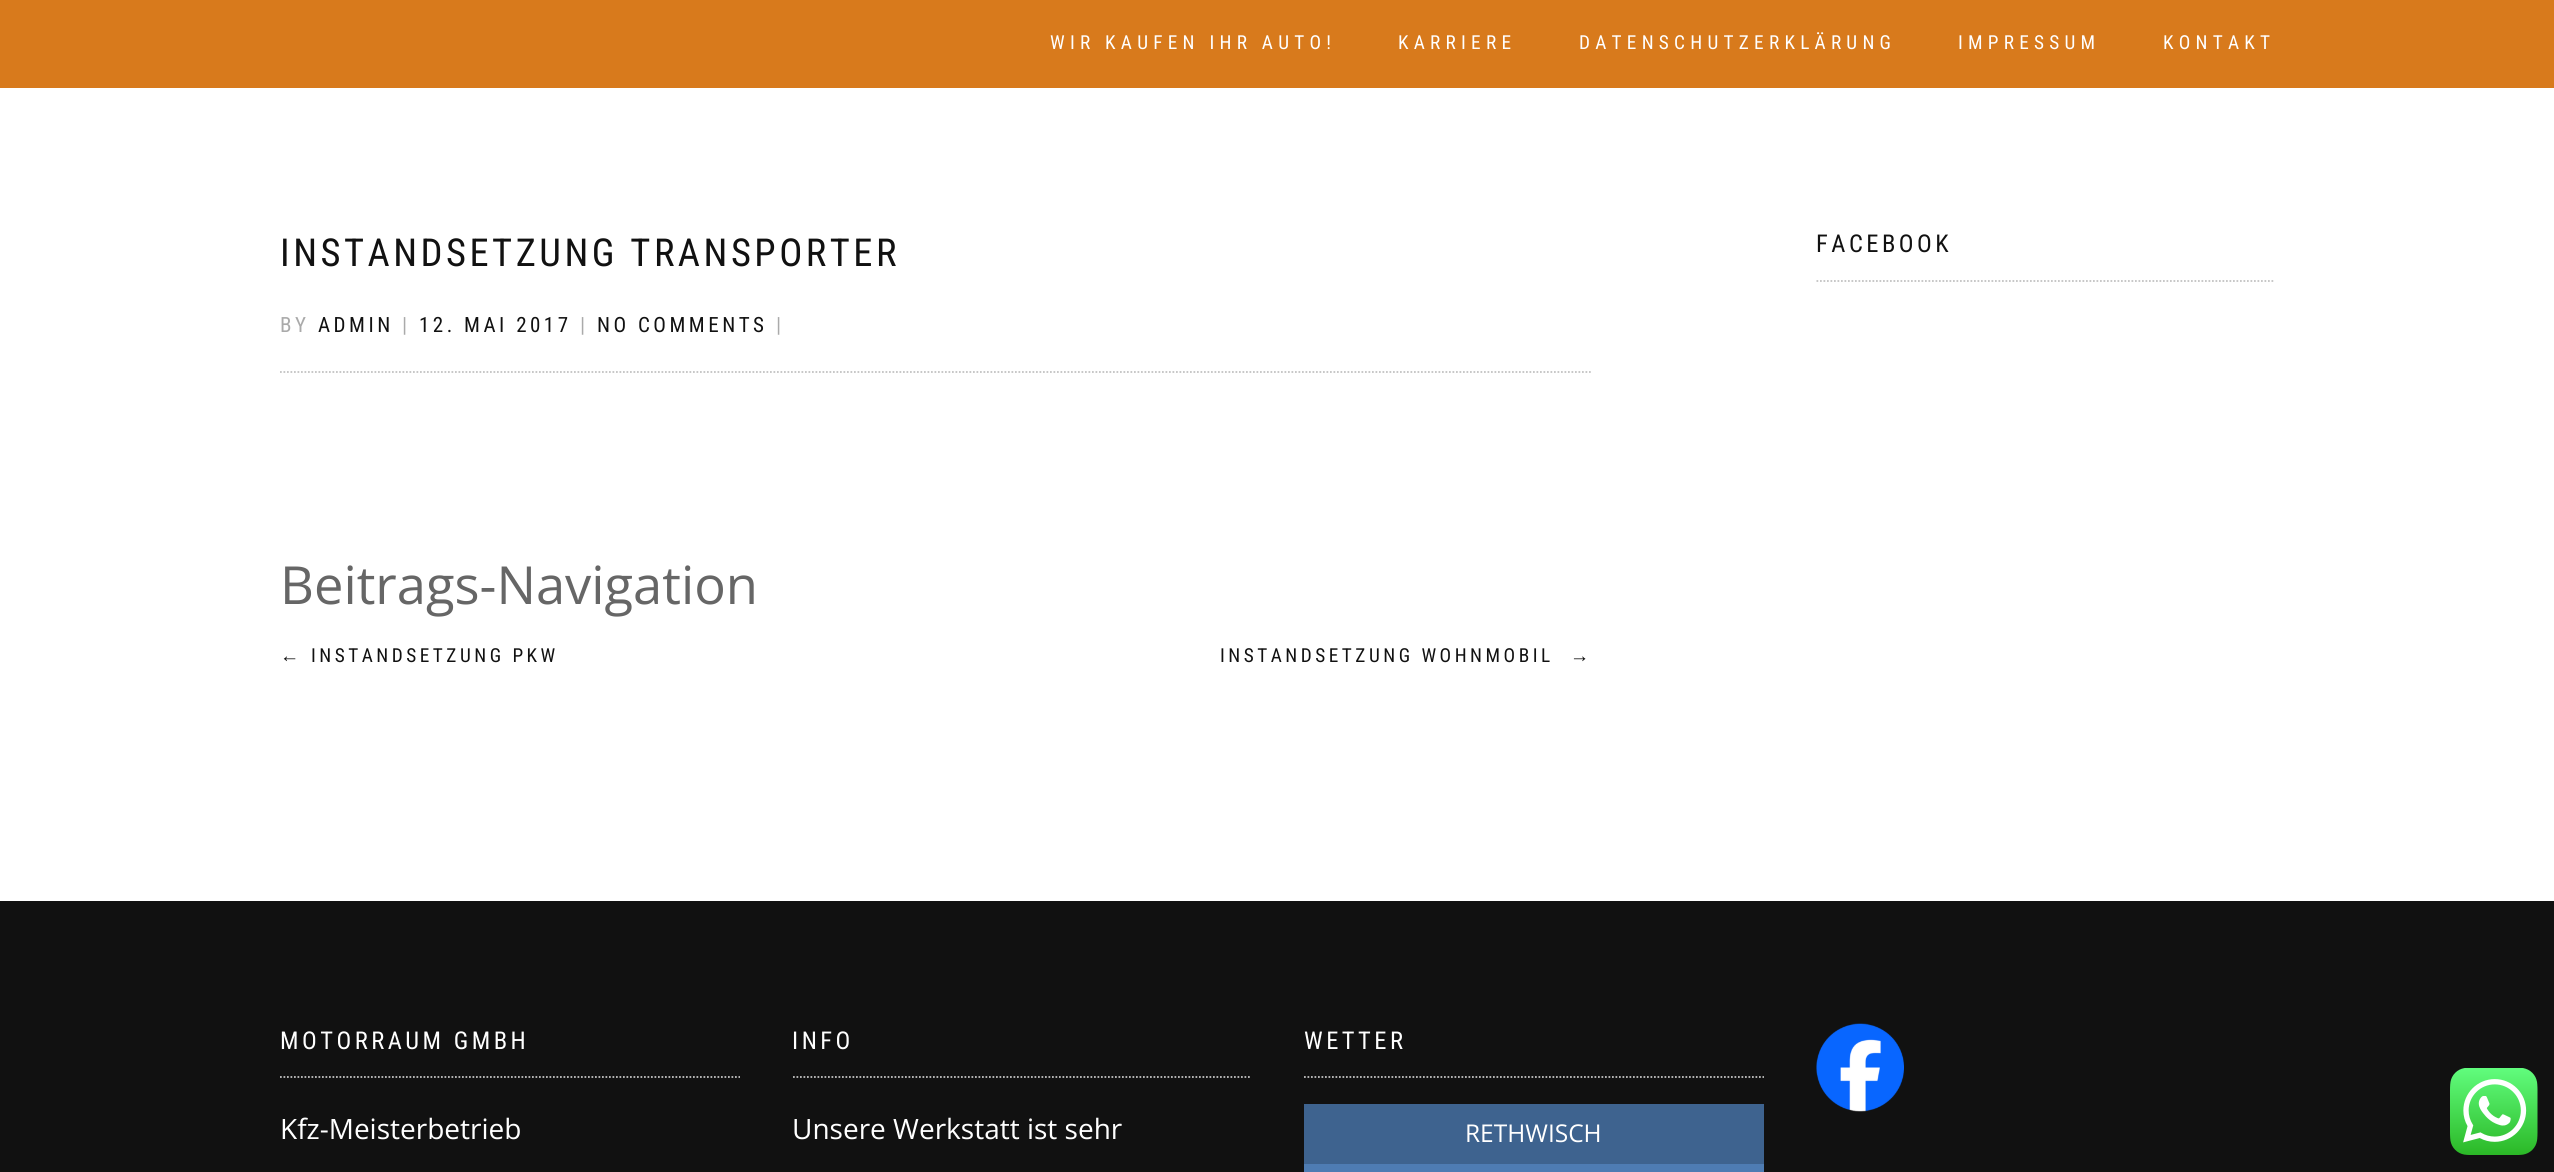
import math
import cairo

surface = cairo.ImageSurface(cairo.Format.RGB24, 2554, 1172)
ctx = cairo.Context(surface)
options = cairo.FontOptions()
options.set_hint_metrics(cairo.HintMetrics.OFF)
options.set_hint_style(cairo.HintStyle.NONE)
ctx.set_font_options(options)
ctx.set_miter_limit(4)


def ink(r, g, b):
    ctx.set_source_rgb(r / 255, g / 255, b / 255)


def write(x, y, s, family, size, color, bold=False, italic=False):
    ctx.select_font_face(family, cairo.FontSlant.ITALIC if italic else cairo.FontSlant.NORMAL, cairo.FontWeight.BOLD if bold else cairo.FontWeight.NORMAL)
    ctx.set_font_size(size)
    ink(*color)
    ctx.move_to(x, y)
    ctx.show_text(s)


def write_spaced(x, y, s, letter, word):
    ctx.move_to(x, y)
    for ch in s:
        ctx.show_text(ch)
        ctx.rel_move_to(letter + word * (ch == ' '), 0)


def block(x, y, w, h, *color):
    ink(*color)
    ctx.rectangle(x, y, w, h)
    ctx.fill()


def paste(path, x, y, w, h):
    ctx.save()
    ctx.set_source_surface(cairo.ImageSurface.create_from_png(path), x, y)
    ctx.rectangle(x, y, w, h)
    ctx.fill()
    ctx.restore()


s1 = dict(family="Open Sans", size=52.5, color=(102, 102, 102))
s2 = dict(family="Open Sans", size=28, color=(255, 255, 255))
s3 = dict(family="Open Sans", size=24.5, color=(255, 255, 255))

ink(255, 255, 255)
ctx.paint()
block(0, 0, 2554, 88, 216, 122, 28)
ctx.select_font_face("Roboto Condensed")
ctx.set_font_size(19.25)
ink(255, 255, 255)
write_spaced(1050, 49, "WIR KAUFEN IHR AUTO!", 5.25, 0)
write_spaced(1398, 49, "KARRIERE", 5.25, 0)
write_spaced(1579, 49, "DATENSCHUTZERKLÄRUNG", 5.25, 0)
write_spaced(1958, 49, "IMPRESSUM", 5.25, 0)
write_spaced(2163, 49, "KONTAKT", 5.25, 0)
ctx.set_font_size(38.5)
ink(17, 17, 17)
write_spaced(280, 266, "INSTANDSETZUNG TRANSPORTER", 3.5, 0)
ctx.set_font_size(21)
ink(170, 170, 170)
write_spaced(280, 332, "BY", 3.5, 0)
ink(17, 17, 17)
write_spaced(318, 332, "ADMIN", 3.5, 0)
ink(170, 170, 170)
write_spaced(402, 332, "|", 3.5, 0)
ink(17, 17, 17)
write_spaced(419, 332, "12. MAI 2017", 3.5, 0)
ink(170, 170, 170)
write_spaced(580, 332, "|", 3.5, 0)
ink(17, 17, 17)
write_spaced(597, 332, "NO COMMENTS", 3.5, 0)
ink(170, 170, 170)
write_spaced(776, 332, "|", 3.5, 0)
ctx.new_path()
ctx.move_to(280, 372)
ctx.line_to(1592.5, 372)
ink(194, 194, 194)
ctx.set_line_width(1.8)
ctx.set_dash([1.75, 1.75])
ctx.stroke()
write(280, 604, "Beitrags-Navigation", **s1)
ctx.select_font_face("Liberation Sans")
ctx.set_font_size(19.25)
ink(17, 17, 17)
write_spaced(280, 662, "←", 3.5, 0)
ctx.select_font_face("Roboto Condensed")
write_spaced(311, 662, "INSTANDSETZUNG PKW", 3.5, 0)
write_spaced(1220, 662, "INSTANDSETZUNG WOHNMOBIL", 3.5, 0)
ctx.select_font_face("Liberation Sans")
write_spaced(1570, 662, "→", 3.5, 0)
ctx.new_path()
ctx.move_to(1816.5, 281)
ctx.line_to(2275, 281)
ink(194, 194, 194)
ctx.stroke()
ctx.select_font_face("Roboto Condensed")
ctx.set_font_size(24.5)
ink(17, 17, 17)
write_spaced(1816, 252, "FACEBOOK", 3.5, 0)
block(0, 901, 2554, 271, 17, 17, 17)
ctx.new_path()
ctx.move_to(280, 1077)
ctx.line_to(740, 1077)
ink(194, 194, 194)
ctx.stroke()
ink(255, 255, 255)
write_spaced(280, 1049, "MOTORRAUM GMBH", 3.5, 0)
write(280, 1139, "Kfz-Meisterbetrieb", **s2)
ctx.new_path()
ctx.move_to(793, 1077)
ctx.line_to(1251, 1077)
ink(194, 194, 194)
ctx.stroke()
ctx.select_font_face("Roboto Condensed")
ctx.set_font_size(24.5)
ink(255, 255, 255)
write_spaced(792, 1049, "INFO", 3.5, 0)
write(792, 1139, "Unsere Werkstatt ist sehr", **s2)
ctx.new_path()
ctx.move_to(1304, 1077)
ctx.line_to(1764, 1077)
ink(194, 194, 194)
ctx.stroke()
ctx.select_font_face("Roboto Condensed")
ctx.set_font_size(24.5)
ink(255, 255, 255)
write_spaced(1304, 1049, "WETTER", 3.5, 0)
block(1304, 1164, 460, 8, 78, 124, 179)
block(1304, 1104, 460, 60, 62, 99, 143)
write(1465, 1142, "RETHWISCH", **s3)
paste("pic1.png", 1816, 1023, 88, 89)
paste("pic2.png", 2450, 1068, 88, 87)
surface.write_to_png("screenshot.png")
